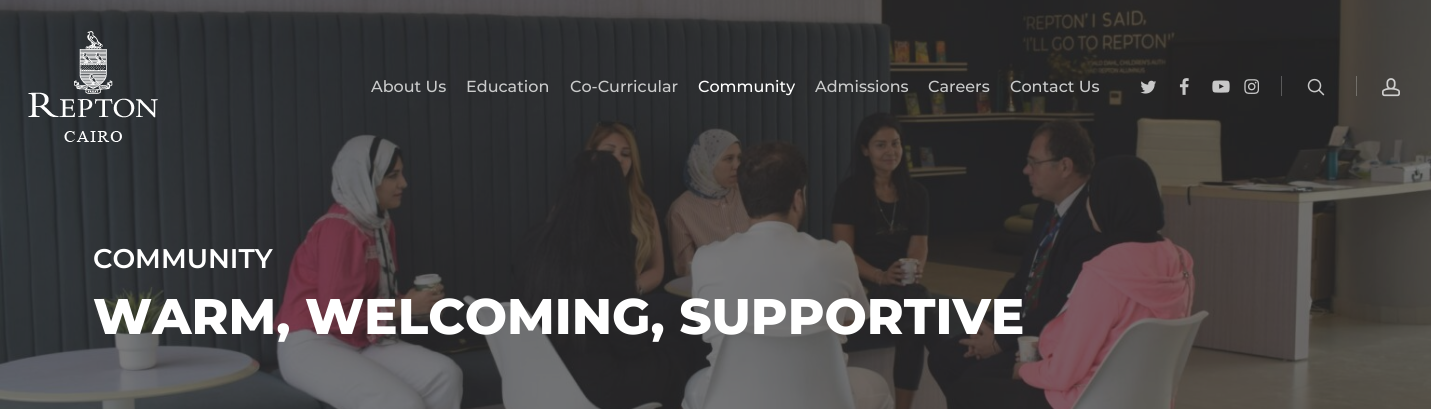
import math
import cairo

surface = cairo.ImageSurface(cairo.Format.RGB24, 1431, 409)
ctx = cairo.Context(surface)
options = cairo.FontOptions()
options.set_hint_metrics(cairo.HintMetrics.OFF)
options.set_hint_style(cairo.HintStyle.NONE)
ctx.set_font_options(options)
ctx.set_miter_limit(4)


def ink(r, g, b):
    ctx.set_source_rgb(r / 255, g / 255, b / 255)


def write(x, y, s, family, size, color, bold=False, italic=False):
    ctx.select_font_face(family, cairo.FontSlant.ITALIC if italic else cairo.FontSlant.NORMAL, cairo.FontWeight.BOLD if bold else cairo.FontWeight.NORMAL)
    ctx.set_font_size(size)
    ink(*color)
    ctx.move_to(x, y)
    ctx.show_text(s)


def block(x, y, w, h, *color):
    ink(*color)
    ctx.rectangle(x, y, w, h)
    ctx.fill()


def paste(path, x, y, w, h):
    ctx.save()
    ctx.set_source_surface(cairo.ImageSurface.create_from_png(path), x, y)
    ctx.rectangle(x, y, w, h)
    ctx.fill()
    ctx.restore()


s1 = dict(family="Montserrat Medium", size=16, color=(202, 203, 203))
s2 = dict(family="Montserrat Medium", size=16, color=(255, 255, 255))
s3 = dict(family="Montserrat SemiBold", size=27, color=(255, 255, 255))
s4 = dict(family="Montserrat ExtraBold", size=50, color=(255, 255, 255))

ink(255, 255, 255)
ctx.paint()
paste("pic8.png", 0, 0, 1431, 409)
paste("pic1.png", 28, 31, 130, 111)
write(371, 92, "About Us", **s1)
write(466, 92, "Education", **s1)
write(570, 92, "Co-Curricular", **s1)
write(698, 92, "Community", **s2)
write(815, 92, "Admissions", **s1)
write(928, 92, "Careers", **s1)
write(1010, 92, "Contact Us", **s1)
paste("pic2.png", 1140, 80, 16, 14)
paste("pic3.png", 1179, 78, 10, 17)
paste("pic4.png", 1212, 80, 18, 13)
paste("pic5.png", 1244, 79, 15, 15)
block(1281, 82, 1, 9, 33, 33, 34)
ctx.set_source_rgba(1, 1, 1, 0.25)
ctx.rectangle(1281, 76, 1, 20)
ctx.fill()
paste("pic6.png", 1307, 78, 18, 18)
block(1356, 82, 1, 9, 65, 60, 53)
ctx.set_source_rgba(1, 1, 1, 0.25)
ctx.rectangle(1356, 76, 1, 20)
ctx.fill()
paste("pic7.png", 1382, 78, 18, 19)
write(93, 268, "COMMUNITY", **s3)
write(93, 334, "WARM, WELCOMING, SUPPORTIVE", **s4)
surface.write_to_png("screenshot.png")
